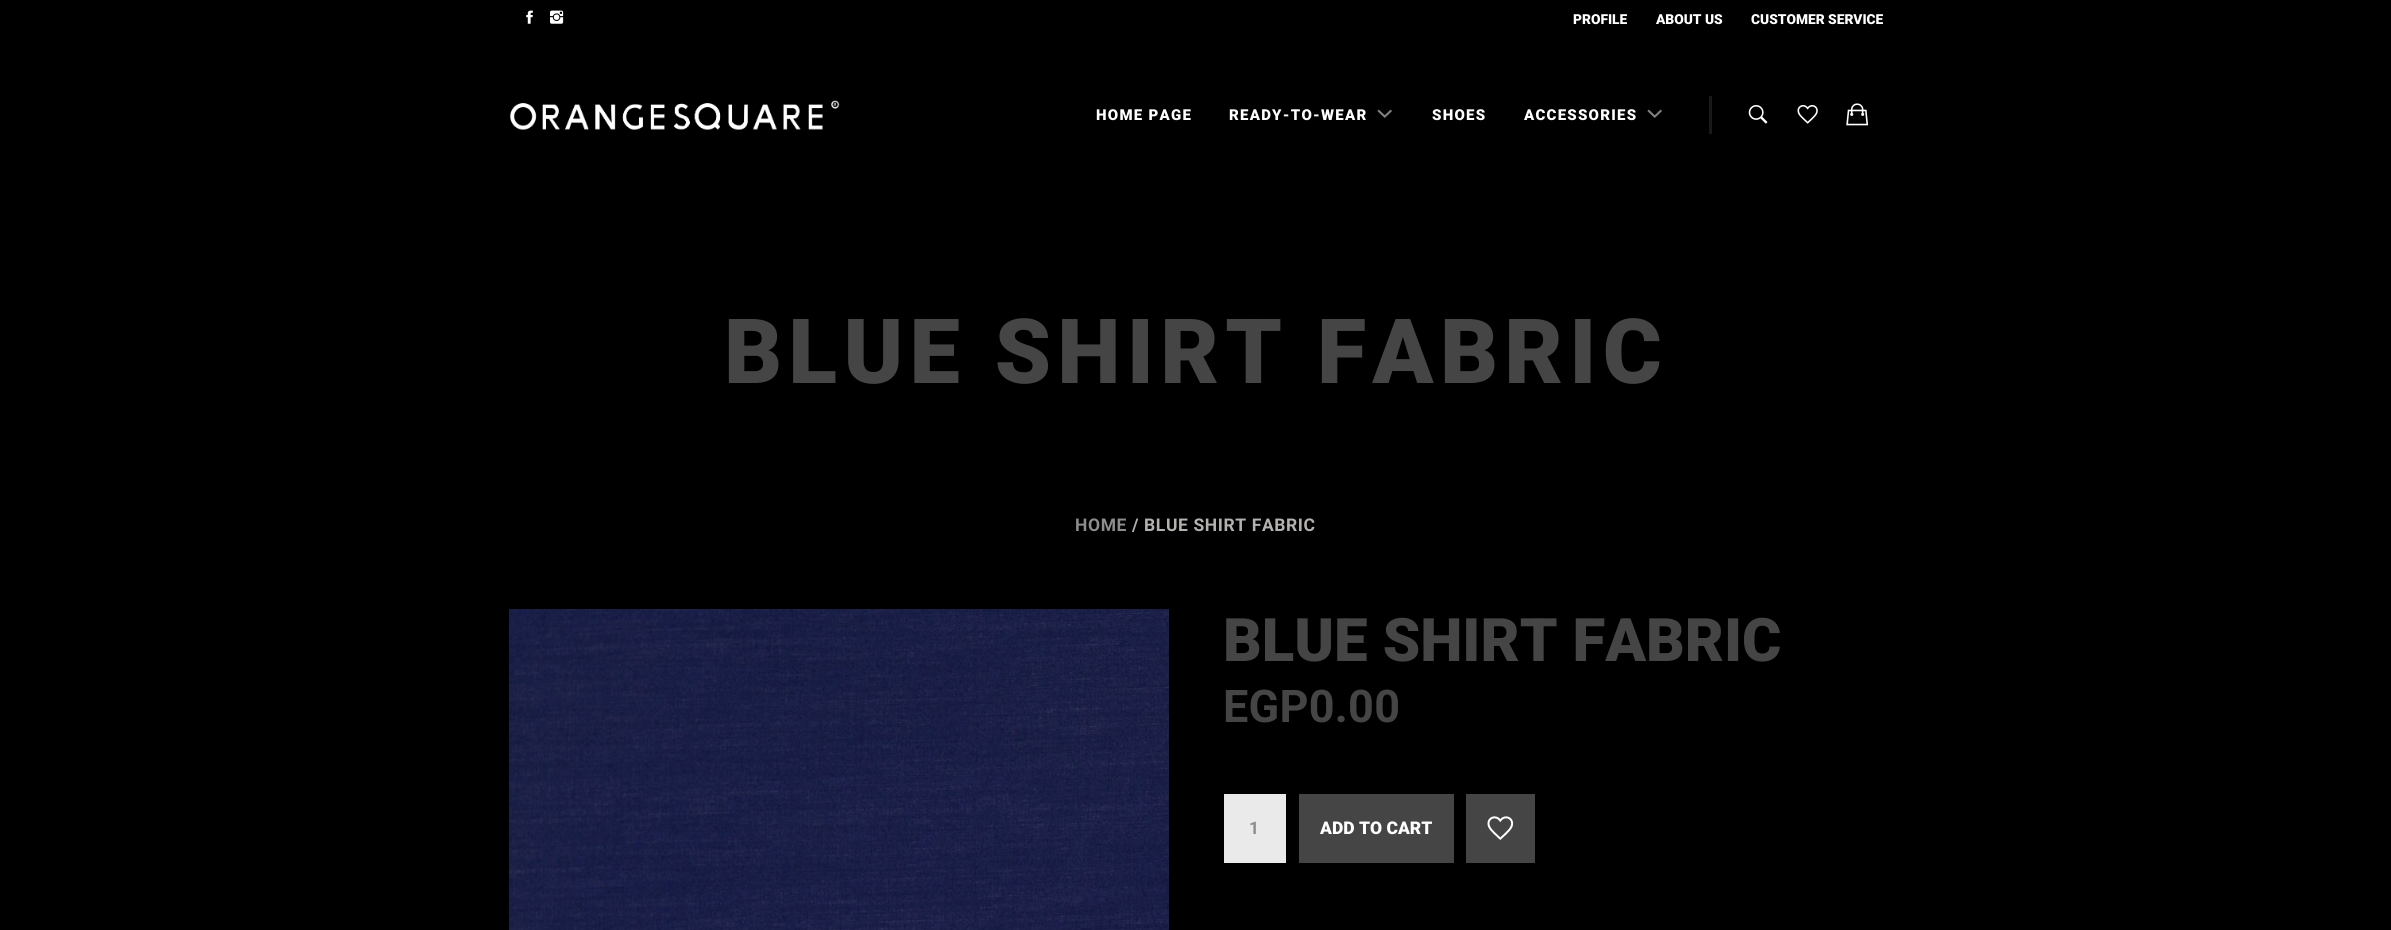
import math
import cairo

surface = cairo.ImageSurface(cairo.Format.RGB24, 2391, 930)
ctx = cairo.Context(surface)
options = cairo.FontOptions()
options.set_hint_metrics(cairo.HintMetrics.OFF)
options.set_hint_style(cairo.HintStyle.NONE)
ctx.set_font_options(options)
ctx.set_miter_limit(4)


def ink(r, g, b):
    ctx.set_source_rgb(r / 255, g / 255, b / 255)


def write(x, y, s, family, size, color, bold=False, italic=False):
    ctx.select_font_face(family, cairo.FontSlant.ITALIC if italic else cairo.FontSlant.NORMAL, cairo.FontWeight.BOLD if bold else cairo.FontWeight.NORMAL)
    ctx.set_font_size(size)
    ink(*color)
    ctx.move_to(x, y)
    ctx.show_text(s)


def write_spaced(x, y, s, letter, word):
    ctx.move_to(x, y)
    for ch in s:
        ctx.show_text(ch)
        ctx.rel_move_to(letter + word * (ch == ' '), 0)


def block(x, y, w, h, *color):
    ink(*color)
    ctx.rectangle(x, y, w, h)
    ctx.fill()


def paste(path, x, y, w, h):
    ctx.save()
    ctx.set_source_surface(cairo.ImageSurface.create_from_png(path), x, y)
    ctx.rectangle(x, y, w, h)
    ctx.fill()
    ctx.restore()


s1 = dict(family="Roboto Black", size=13.75, color=(255, 255, 255))
s2 = dict(family="Roboto Black", size=60, color=(69, 69, 69))
s3 = dict(family="Roboto", size=17.5, color=(141, 141, 141), bold=True)
s4 = dict(family="Roboto Black", size=17.5, color=(255, 255, 255))

ink(0, 0, 0)
ctx.paint()
paste("pic1.png", 526, 10, 7, 14)
paste("pic2.png", 550, 10, 14, 14)
write(1573, 24, "PROFILE", **s1)
write(1656, 24, "ABOUT US", **s1)
write(1751, 24, "CUSTOMER SERVICE", **s1)
paste("pic3.png", 510, 100, 330, 30)
ctx.set_font_size(15)
write_spaced(1096, 120, "HOME PAGE", 1.25, 0)
write_spaced(1229, 120, "READY-TO-WEAR", 1.25, 0)
paste("pic4.png", 1377, 109, 15, 9)
write_spaced(1432, 120, "SHOES", 1.25, 0)
write_spaced(1524, 120, "ACCESSORIES", 1.25, 0)
paste("pic4.png", 1647, 109, 15, 9)
block(1709, 96, 3, 38, 25, 25, 25)
paste("pic5.png", 1748, 105, 20, 19)
paste("pic6.png", 1797, 105, 21, 19)
paste("pic7.png", 1846, 103, 23, 23)
ctx.set_font_size(90)
ink(69, 69, 69)
write_spaced(724, 383, "BLUE SHIRT FABRIC", 6.25, 0)
ctx.select_font_face("Roboto", cairo.FontSlant.NORMAL, cairo.FontWeight.BOLD)
ctx.set_font_size(17.5)
ink(141, 141, 141)
write_spaced(1075, 531, "HOME", 0.6, 0)
ink(181, 177, 175)
write_spaced(1132, 531, "/ BLUE SHIRT FABRIC", 0.6, 0)
paste("pic8.png", 509, 609, 660, 321)
write(1223, 661, "BLUE SHIRT FABRIC", **s2)
ctx.select_font_face("Roboto", cairo.FontSlant.NORMAL, cairo.FontWeight.BOLD)
ctx.set_font_size(45)
write_spaced(1223, 722, "EGP0.00", 0.25, 0)
block(1224, 794, 62, 69, 234, 234, 234)
write(1249, 834, "1", **s3)
block(1299, 794, 155, 69, 69, 69, 69)
write(1320, 834, "ADD TO CART", **s4)
block(1466, 794, 69, 69, 69, 69, 69)
paste("pic9.png", 1487, 816, 27, 24)
surface.write_to_png("screenshot.png")
